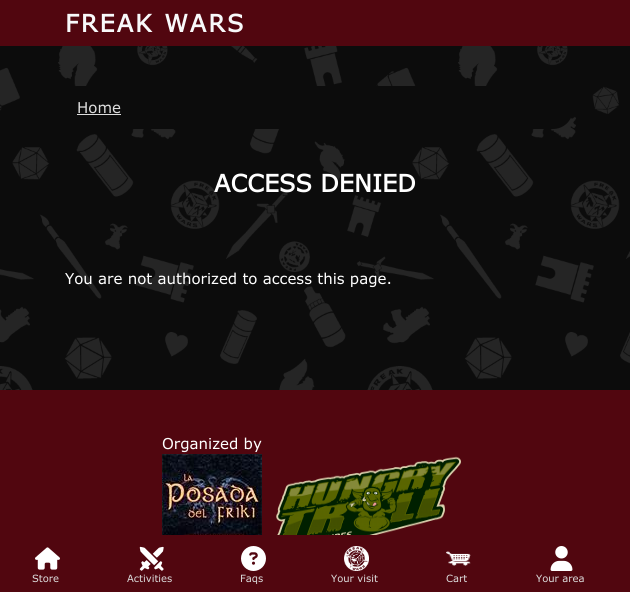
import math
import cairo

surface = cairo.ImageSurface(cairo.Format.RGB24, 630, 592)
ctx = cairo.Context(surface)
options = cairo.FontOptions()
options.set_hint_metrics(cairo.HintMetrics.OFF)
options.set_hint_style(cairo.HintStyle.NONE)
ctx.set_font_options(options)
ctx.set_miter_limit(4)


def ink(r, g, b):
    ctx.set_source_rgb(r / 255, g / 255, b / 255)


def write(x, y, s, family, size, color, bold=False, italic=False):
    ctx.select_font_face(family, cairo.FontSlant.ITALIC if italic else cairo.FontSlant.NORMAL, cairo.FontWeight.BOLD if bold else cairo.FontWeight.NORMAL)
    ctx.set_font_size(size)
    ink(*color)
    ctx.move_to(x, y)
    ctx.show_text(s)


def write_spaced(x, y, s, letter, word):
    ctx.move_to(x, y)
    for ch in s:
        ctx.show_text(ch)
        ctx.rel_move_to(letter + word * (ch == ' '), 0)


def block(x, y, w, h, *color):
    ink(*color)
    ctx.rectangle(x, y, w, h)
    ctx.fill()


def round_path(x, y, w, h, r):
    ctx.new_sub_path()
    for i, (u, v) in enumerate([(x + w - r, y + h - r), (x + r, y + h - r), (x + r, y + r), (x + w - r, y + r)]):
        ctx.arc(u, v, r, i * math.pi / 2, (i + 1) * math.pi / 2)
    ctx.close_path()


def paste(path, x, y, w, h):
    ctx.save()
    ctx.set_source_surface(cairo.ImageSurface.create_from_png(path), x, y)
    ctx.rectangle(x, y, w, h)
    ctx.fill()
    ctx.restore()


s1 = dict(family="Verdana", size=10, color=(221, 221, 221))
s2 = dict(family="Verdana", size=15, color=(221, 221, 221))
s3 = dict(family="Verdana", size=24, color=(255, 255, 255), bold=True)
s4 = dict(family="Verdana", size=15, color=(255, 255, 255))

ink(12, 12, 12)
ctx.paint()
paste("pic1.png", 0, 46, 630, 344)
block(0, 0, 630, 46, 81, 6, 15)
ctx.select_font_face("Verdana", cairo.FontSlant.NORMAL, cairo.FontWeight.BOLD)
ctx.set_font_size(24)
ink(248, 249, 250)
write_spaced(65, 32, "FREAK WARS", 2, 0)
block(0, 390, 630, 202, 81, 6, 15)
paste("pic2.png", 35, 547, 25, 23)
write(32, 582, "Store", **s1)
paste("pic3.png", 139, 546, 25, 25)
write(127, 582, "Activities", **s1)
paste("pic4.png", 241, 546, 25, 25)
write(240, 582, "Faqs", **s1)
paste("pic5.png", 344, 546, 25, 25)
write(331, 582, "Your visit", **s1)
paste("pic6.png", 446, 551, 25, 15)
write(446, 582, "Cart", **s1)
paste("pic7.png", 550, 546, 23, 25)
write(536, 582, "Your area", **s1)
ink(12, 12, 12)
round_path(57, 86, 516, 43, 20)
ctx.fill()
write(77, 113, "Home", **s2)
block(77, 114, 44, 1, 221, 221, 221)
write(214, 192, "ACCESS DENIED", **s3)
write(65, 284, "You are not authorized to access this page.", **s4)
write(162, 449, "Organized by", **s4)
paste("pic8.png", 162, 454, 100, 81)
paste("pic9.png", 276, 456, 185, 79)
surface.write_to_png("screenshot.png")
